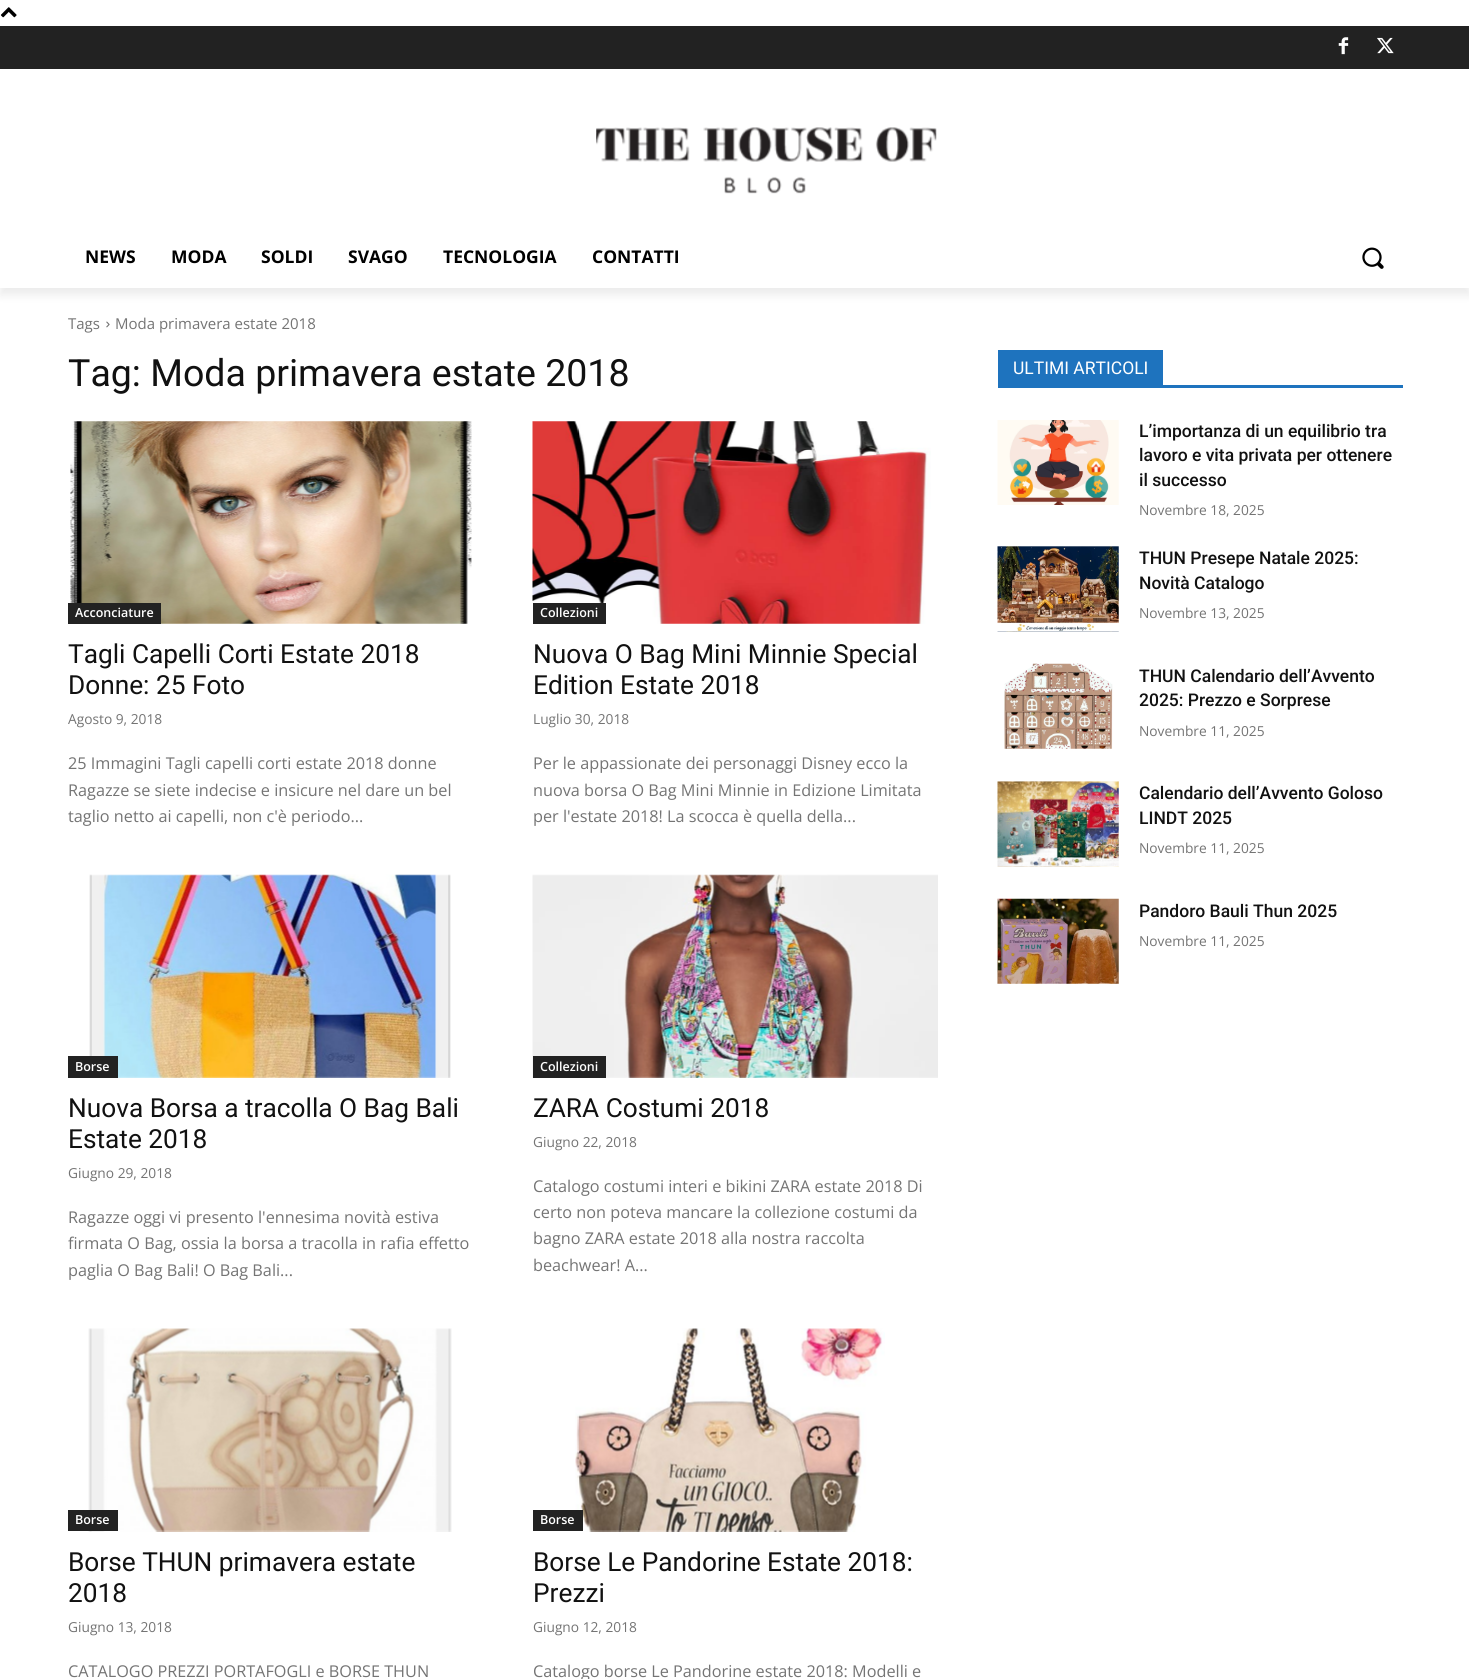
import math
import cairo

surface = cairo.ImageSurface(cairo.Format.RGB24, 1469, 1679)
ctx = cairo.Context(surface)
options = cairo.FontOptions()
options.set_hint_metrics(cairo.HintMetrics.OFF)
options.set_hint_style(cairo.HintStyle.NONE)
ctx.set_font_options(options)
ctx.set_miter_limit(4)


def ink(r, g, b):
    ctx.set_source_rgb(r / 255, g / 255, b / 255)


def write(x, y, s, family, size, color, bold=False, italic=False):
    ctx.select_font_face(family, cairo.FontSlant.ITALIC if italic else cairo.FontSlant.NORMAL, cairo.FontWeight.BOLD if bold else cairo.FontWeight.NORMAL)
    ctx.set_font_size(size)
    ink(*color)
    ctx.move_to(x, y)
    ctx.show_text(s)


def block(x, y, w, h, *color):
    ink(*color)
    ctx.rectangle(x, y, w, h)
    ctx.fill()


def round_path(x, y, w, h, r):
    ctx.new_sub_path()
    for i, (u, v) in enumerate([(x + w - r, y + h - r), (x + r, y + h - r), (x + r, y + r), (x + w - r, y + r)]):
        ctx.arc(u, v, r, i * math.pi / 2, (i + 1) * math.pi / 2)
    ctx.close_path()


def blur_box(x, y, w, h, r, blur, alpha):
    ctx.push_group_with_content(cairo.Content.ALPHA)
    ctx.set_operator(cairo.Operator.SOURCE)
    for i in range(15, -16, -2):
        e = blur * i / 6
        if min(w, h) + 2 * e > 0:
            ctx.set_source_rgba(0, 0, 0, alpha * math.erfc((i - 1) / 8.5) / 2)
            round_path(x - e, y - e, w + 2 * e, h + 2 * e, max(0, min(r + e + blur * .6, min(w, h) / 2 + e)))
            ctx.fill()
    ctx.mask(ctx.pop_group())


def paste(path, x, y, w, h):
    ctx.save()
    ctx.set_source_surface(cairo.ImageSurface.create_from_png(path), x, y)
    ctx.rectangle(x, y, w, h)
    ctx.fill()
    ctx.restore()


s1 = dict(family="Open Sans", size=17.5, color=(0, 0, 0), bold=True)
s2 = dict(family="Open Sans", size=15, color=(116, 116, 116))
s3 = dict(family="Roboto", size=37.5, color=(17, 17, 17))
s4 = dict(family="Open Sans SemiBold", size=12.5, color=(255, 255, 255))
s5 = dict(family="Roboto", size=26.25, color=(17, 17, 17))
s6 = dict(family="Open Sans", size=13.75, color=(116, 116, 116))
s7 = dict(family="Open Sans", size=16.25, color=(116, 116, 116))
s8 = dict(family="Roboto", size=17.5, color=(255, 255, 255))
s9 = dict(family="Roboto Medium", size=17.5, color=(17, 17, 17))

ink(255, 255, 255)
ctx.paint()
paste("pic1.png", 0, 7, 17, 11)
block(0, 26, 1469, 43, 34, 34, 34)
paste("pic2.png", 1338, 37, 11, 18)
paste("pic3.png", 1377, 37, 17, 17)
paste("pic4.png", 596, 127, 341, 67)
ctx.save()
ctx.set_fill_rule(cairo.FillRule.EVEN_ODD)
ctx.new_path()
ctx.move_to(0, 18)
ctx.line_to(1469, 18)
ctx.line_to(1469, 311)
ctx.line_to(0, 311)
ctx.close_path()
ctx.move_to(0, 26)
ctx.line_to(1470, 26)
ctx.line_to(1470, 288)
ctx.line_to(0, 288)
ctx.close_path()
ctx.clip()
ink(0, 0, 0)
blur_box(0, 34, 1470, 261, 0, 5, 0.08)
ctx.restore()
write(85, 263, "NEWS", **s1)
write(171, 263, "MODA", **s1)
write(261, 263, "SOLDI", **s1)
write(348, 263, "SVAGO", **s1)
write(443, 263, "TECNOLOGIA", **s1)
write(592, 263, "CONTATTI", **s1)
paste("pic5.png", 1362, 247, 22, 22)
write(68, 329, "Tags", **s2)
paste("pic6.png", 106, 321, 4, 7)
write(115, 329, "Moda primavera estate 2018", **s2)
write(68, 386, "Tag: Moda primavera estate 2018", **s3)
paste("pic7.png", 70, 421, 402, 203)
block(68, 603, 93, 21, 34, 34, 34)
write(75, 617, "Acconciature", **s4)
write(68, 663, "Tagli Capelli Corti Estate 2018", **s5)
write(68, 694, "Donne: 25 Foto", **s5)
write(68, 724, "Agosto 9, 2018", **s6)
write(68, 769, "25 Immagini Tagli capelli corti estate 2018 donne", **s7)
write(68, 796, "Ragazze se siete indecise e insicure nel dare un bel", **s7)
write(68, 822, "taglio netto ai capelli, non c'è periodo...", **s7)
paste("pic8.png", 532, 421, 399, 203)
block(533, 603, 73, 21, 34, 34, 34)
write(540, 617, "Collezioni", **s4)
write(533, 663, "Nuova O Bag Mini Minnie Special", **s5)
write(533, 694, "Edition Estate 2018", **s5)
write(533, 724, "Luglio 30, 2018", **s6)
write(533, 769, "Per le appassionate dei personaggi Disney ecco la", **s7)
write(533, 796, "nuova borsa O Bag Mini Minnie in Edizione Limitata", **s7)
write(533, 822, "per l'estate 2018! La scocca è quella della...", **s7)
paste("pic9.png", 89, 874, 362, 204)
block(68, 1056, 50, 22, 34, 34, 34)
write(75, 1071, "Borse", **s4)
write(68, 1117, "Nuova Borsa a tracolla O Bag Bali", **s5)
write(68, 1148, "Estate 2018", **s5)
write(68, 1178, "Giugno 29, 2018", **s6)
write(68, 1223, "Ragazze oggi vi presento l'ennesima novità estiva", **s7)
write(68, 1249, "firmata O Bag, ossia la borsa a tracolla in rafia effetto", **s7)
write(68, 1276, "paglia O Bag Bali! O Bag Bali...", **s7)
paste("pic10.png", 532, 874, 406, 204)
block(533, 1056, 73, 22, 34, 34, 34)
write(540, 1071, "Collezioni", **s4)
write(533, 1117, "ZARA Costumi 2018", **s5)
write(533, 1147, "Giugno 22, 2018", **s6)
write(533, 1192, "Catalogo costumi interi e bikini ZARA estate 2018 Di", **s7)
write(533, 1218, "certo non poteva mancare la collezione costumi da", **s7)
write(533, 1244, "bagno ZARA estate 2018 alla nostra raccolta", **s7)
write(533, 1271, "beachwear! A...", **s7)
paste("pic11.png", 88, 1328, 364, 204)
block(68, 1510, 50, 21, 34, 34, 34)
write(75, 1524, "Borse", **s4)
write(68, 1571, "Borse THUN primavera estate", **s5)
write(68, 1602, "2018", **s5)
write(68, 1632, "Giugno 13, 2018", **s6)
write(68, 1677, "CATALOGO PREZZI PORTAFOGLI e BORSE THUN", **s7)
paste("pic12.png", 575, 1328, 310, 204)
block(533, 1510, 50, 21, 34, 34, 34)
write(540, 1524, "Borse", **s4)
write(533, 1571, "Borse Le Pandorine Estate 2018:", **s5)
write(533, 1602, "Prezzi", **s5)
write(533, 1632, "Giugno 12, 2018", **s6)
write(533, 1677, "Catalogo borse Le Pandorine estate 2018: Modelli e", **s7)
block(998, 385, 405, 3, 30, 115, 190)
block(998, 350, 165, 35, 30, 115, 190)
write(1013, 374, "ULTIMI ARTICOLI", **s8)
paste("pic13.png", 997, 420, 122, 85)
write(1139, 437, "L’importanza di un equilibrio tra", **s9)
write(1139, 461, "lavoro e vita privata per ottenere", **s9)
write(1139, 486, "il successo", **s9)
write(1139, 515, "Novembre 18, 2025", **s6)
paste("pic14.png", 997, 546, 122, 86)
write(1139, 564, "THUN Presepe Natale 2025:", **s9)
write(1139, 589, "Novità Catalogo", **s9)
write(1139, 618, "Novembre 13, 2025", **s6)
paste("pic15.png", 1004, 663, 109, 86)
write(1139, 682, "THUN Calendario dell’Avvento", **s9)
write(1139, 706, "2025: Prezzo e Sorprese", **s9)
write(1139, 736, "Novembre 11, 2025", **s6)
paste("pic16.png", 997, 781, 122, 86)
write(1139, 799, "Calendario dell’Avvento Goloso", **s9)
write(1139, 824, "LINDT 2025", **s9)
write(1139, 853, "Novembre 11, 2025", **s6)
paste("pic17.png", 997, 898, 122, 86)
write(1139, 917, "Pandoro Bauli Thun 2025", **s9)
write(1139, 946, "Novembre 11, 2025", **s6)
surface.write_to_png("screenshot.png")
